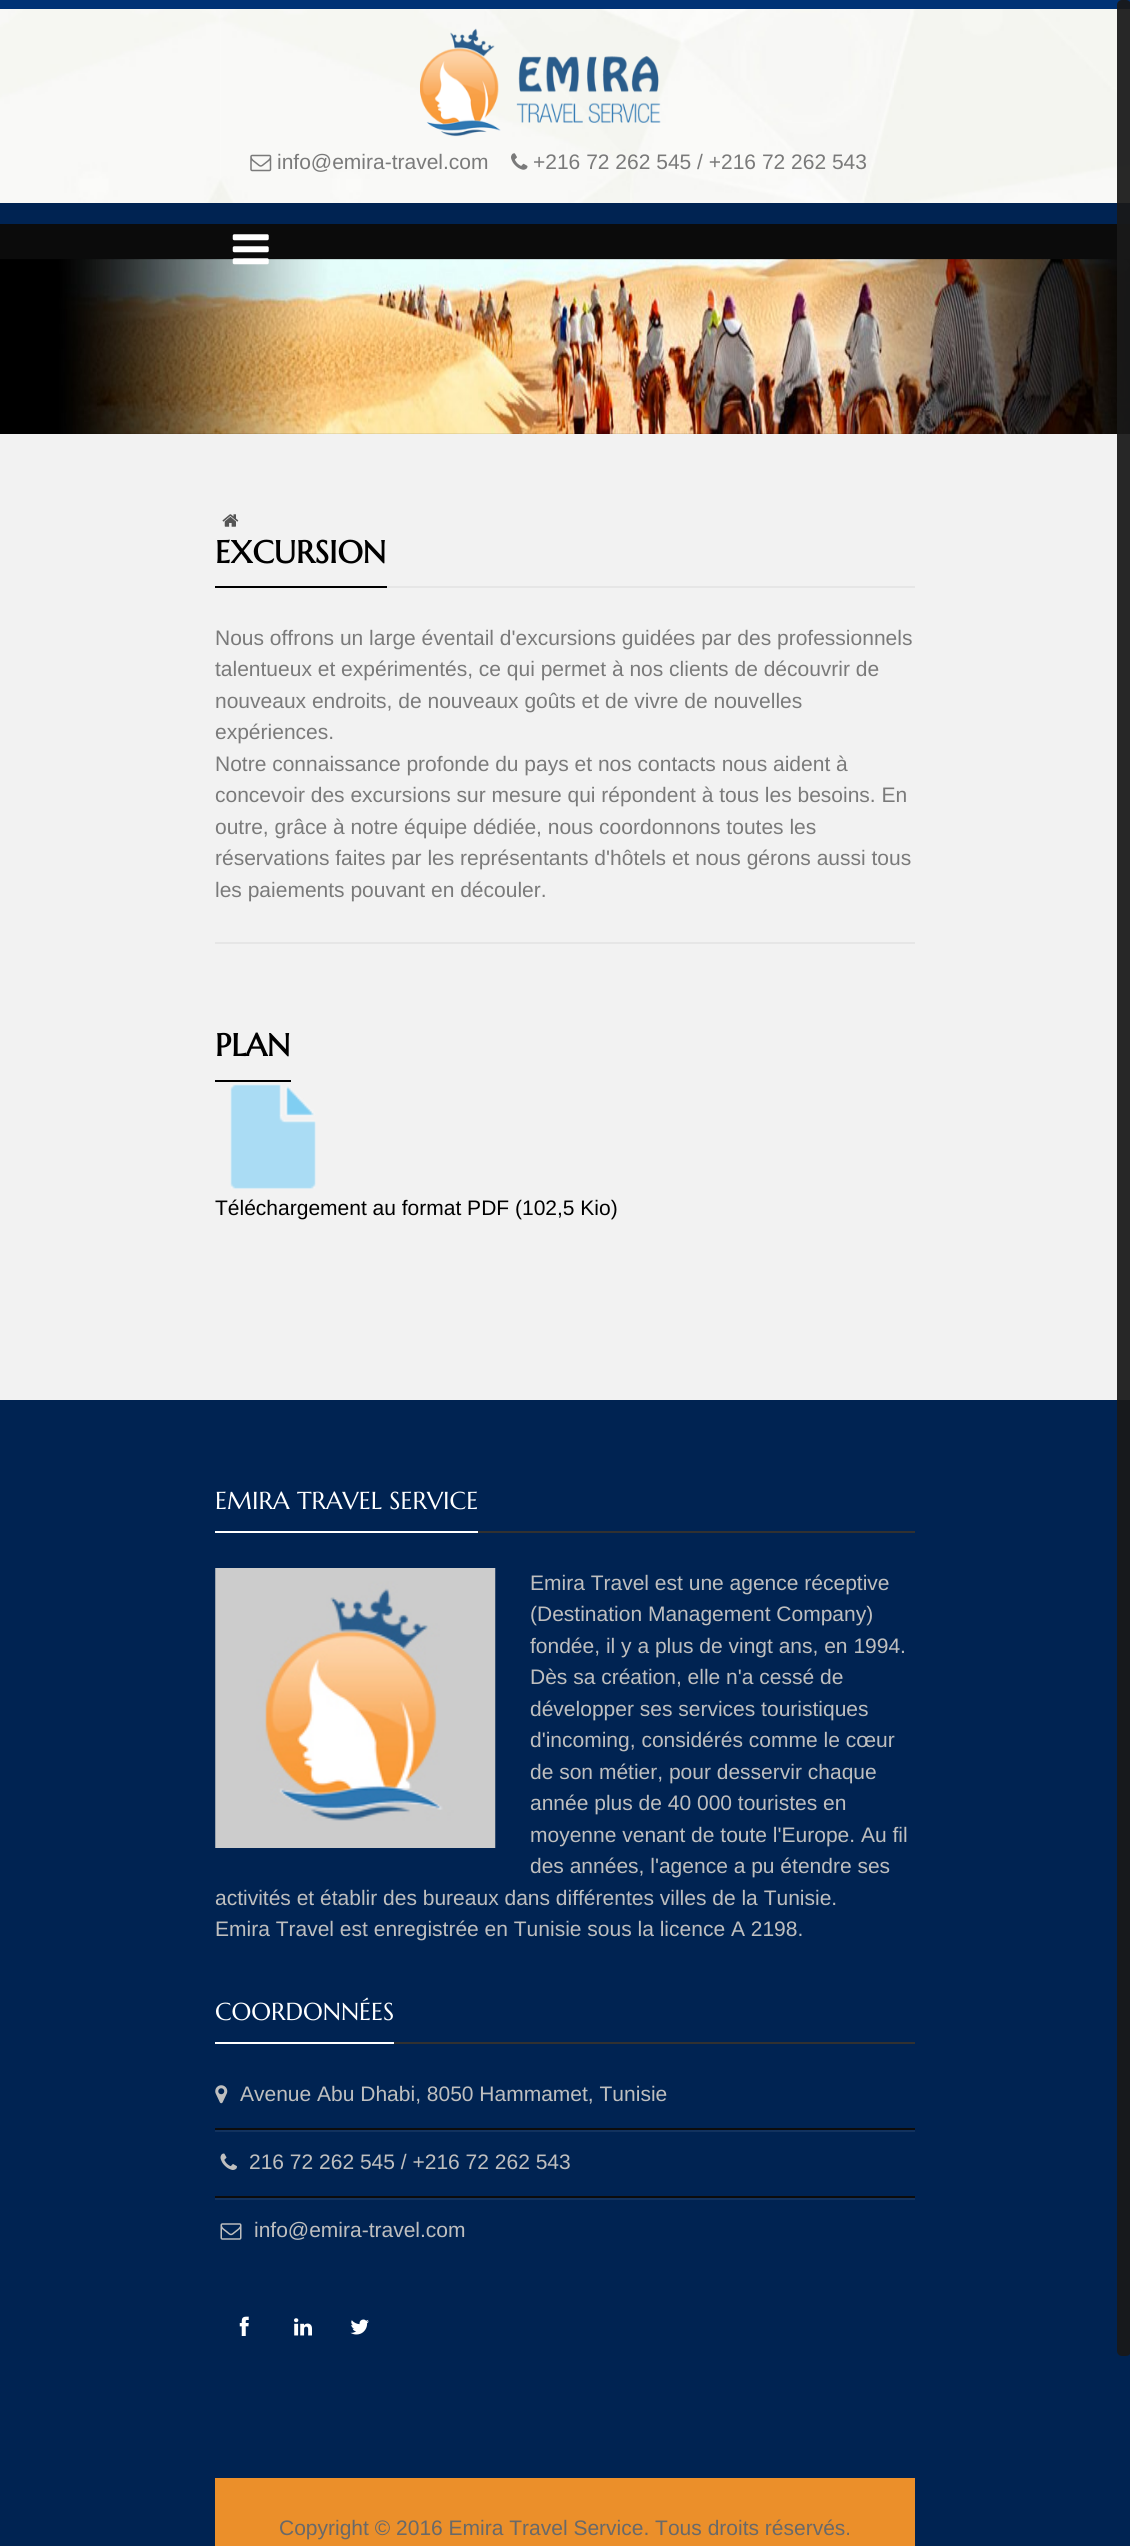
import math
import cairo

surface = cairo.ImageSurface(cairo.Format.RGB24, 1130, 2546)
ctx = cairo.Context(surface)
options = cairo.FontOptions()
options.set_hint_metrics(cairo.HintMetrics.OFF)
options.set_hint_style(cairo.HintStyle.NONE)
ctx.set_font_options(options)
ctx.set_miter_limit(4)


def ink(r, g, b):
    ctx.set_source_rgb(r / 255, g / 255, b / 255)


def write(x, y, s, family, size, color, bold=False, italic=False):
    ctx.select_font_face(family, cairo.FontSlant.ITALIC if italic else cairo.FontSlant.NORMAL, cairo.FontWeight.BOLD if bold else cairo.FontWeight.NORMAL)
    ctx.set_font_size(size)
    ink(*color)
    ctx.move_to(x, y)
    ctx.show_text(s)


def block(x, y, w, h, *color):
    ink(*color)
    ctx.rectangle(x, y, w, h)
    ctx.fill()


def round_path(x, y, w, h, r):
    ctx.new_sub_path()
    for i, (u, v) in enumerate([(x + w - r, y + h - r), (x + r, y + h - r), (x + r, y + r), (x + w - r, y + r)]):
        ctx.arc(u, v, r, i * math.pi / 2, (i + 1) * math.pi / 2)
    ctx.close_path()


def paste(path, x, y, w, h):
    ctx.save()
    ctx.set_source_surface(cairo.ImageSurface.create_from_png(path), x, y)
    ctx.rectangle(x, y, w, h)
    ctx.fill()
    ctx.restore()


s1 = dict(family="Liberation Sans", size=21, color=(122, 122, 122))
s2 = dict(family="Marcellus", size=31.5, color=(0, 0, 0), bold=True)
s3 = dict(family="Liberation Sans", size=21, color=(0, 0, 0))
s4 = dict(family="Marcellus", size=24.5, color=(255, 255, 255))
s5 = dict(family="Liberation Sans", size=21, color=(191, 191, 191))
s6 = dict(family="Liberation Sans", size=21, color=(105, 105, 105))

ink(242, 242, 242)
ctx.paint()
paste("pic1.png", 0, 9, 1130, 194)
block(0, 0, 1130, 9, 0, 50, 117)
paste("pic2.png", 420, 28, 241, 109)
paste("pic3.png", 250, 154, 22, 18)
write(277, 169, "info@emira-travel.com", **s1)
paste("pic4.png", 511, 153, 17, 17)
write(533, 169, "+216 72 262 545 / +216 72 262 543", **s1)
block(0, 203, 1130, 21, 0, 35, 82)
block(0, 224, 1130, 210, 11, 11, 11)
paste("pic6.png", 0, 259, 1130, 175)
paste("pic5.png", 232, 234, 37, 31)
paste("pic7.png", 222, 514, 17, 13)
block(215, 942, 700, 2, 230, 230, 230)
block(215, 586, 172, 2, 0, 0, 0)
write(215, 563, "EXCURSION", **s2)
block(387, 586, 528, 2, 230, 230, 230)
write(215, 645, "Nous offrons un large éventail d'excursions guidées par des professionnels", **s1)
write(215, 676, "talentueux et expérimentés, ce qui permet à nos clients de découvrir de", **s1)
write(215, 708, "nouveaux endroits, de nouveaux goûts et de vivre de nouvelles", **s1)
write(215, 739, "expériences.", **s1)
write(215, 771, "Notre connaissance profonde du pays et nos contacts nous aident à", **s1)
write(215, 802, "concevoir des excursions sur mesure qui répondent à tous les besoins. En", **s1)
write(215, 834, "outre, grâce à notre équipe dédiée, nous coordonnons toutes les", **s1)
write(215, 865, "réservations faites par les représentants d'hôtels et nous gérons aussi tous", **s1)
write(215, 897, "les paiements pouvant en découler.", **s1)
block(215, 1080, 76, 2, 0, 0, 0)
write(215, 1056, "PLAN", **s2)
paste("pic8.png", 230, 1084, 86, 105)
write(215, 1215, "Téléchargement au format PDF (102,5 Kio)", **s3)
block(0, 1400, 1130, 1146, 0, 35, 82)
block(215, 1531, 263, 2, 255, 255, 255)
write(215, 1509, "EMIRA TRAVEL SERVICE", **s4)
block(478, 1531, 437, 2, 49, 49, 49)
paste("pic9.png", 215, 1568, 281, 280)
write(530, 1590, "Emira Travel est une agence réceptive", **s5)
write(530, 1621, "(Destination Management Company)", **s5)
write(530, 1653, "fondée, il y a plus de vingt ans, en 1994.", **s5)
write(530, 1684, "Dès sa création, elle n'a cessé de", **s5)
write(530, 1716, "développer ses services touristiques", **s5)
write(530, 1747, "d'incoming, considérés comme le cœur", **s5)
write(530, 1779, "de son métier, pour desservir chaque", **s5)
write(530, 1810, "année plus de 40 000 touristes en", **s5)
write(530, 1842, "moyenne venant de toute l'Europe. Au fil", **s5)
write(530, 1873, "des années, l'agence a pu étendre ses", **s5)
write(215, 1905, "activités et établir des bureaux dans différentes villes de la Tunisie.", **s5)
write(215, 1936, "Emira Travel est enregistrée en Tunisie sous la licence A 2198.", **s5)
block(215, 2042, 179, 2, 255, 255, 255)
write(215, 2020, "COORDONNÉES", **s4)
block(394, 2042, 521, 2, 49, 49, 49)
paste("pic10.png", 215, 2085, 13, 19)
write(240, 2101, "Avenue Abu Dhabi, 8050 Hammamet, Tunisie", **s5)
block(215, 2130, 700, 2, 18, 50, 94)
block(215, 2128, 700, 2, 12, 12, 12)
paste("pic11.png", 220, 2153, 17, 17)
write(249, 2169, "216 72 262 545 / +216 72 262 543", **s5)
block(215, 2198, 700, 2, 18, 50, 94)
block(215, 2196, 700, 2, 12, 12, 12)
paste("pic12.png", 220, 2223, 22, 17)
write(254, 2237, "info@emira-travel.com", **s5)
paste("pic13.png", 239, 2316, 10, 20)
paste("pic14.png", 294, 2318, 18, 18)
paste("pic15.png", 350, 2319, 19, 16)
block(215, 2478, 700, 68, 235, 143, 42)
write(279, 2535, "Copyright © 2016 Emira Travel Service. Tous droits réservés.", **s6)
ctx.set_source_rgba(0.098, 0.098, 0.098, 0.93)
round_path(1117, 0, 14, 2356, 5)
ctx.fill()
surface.write_to_png("screenshot.png")
